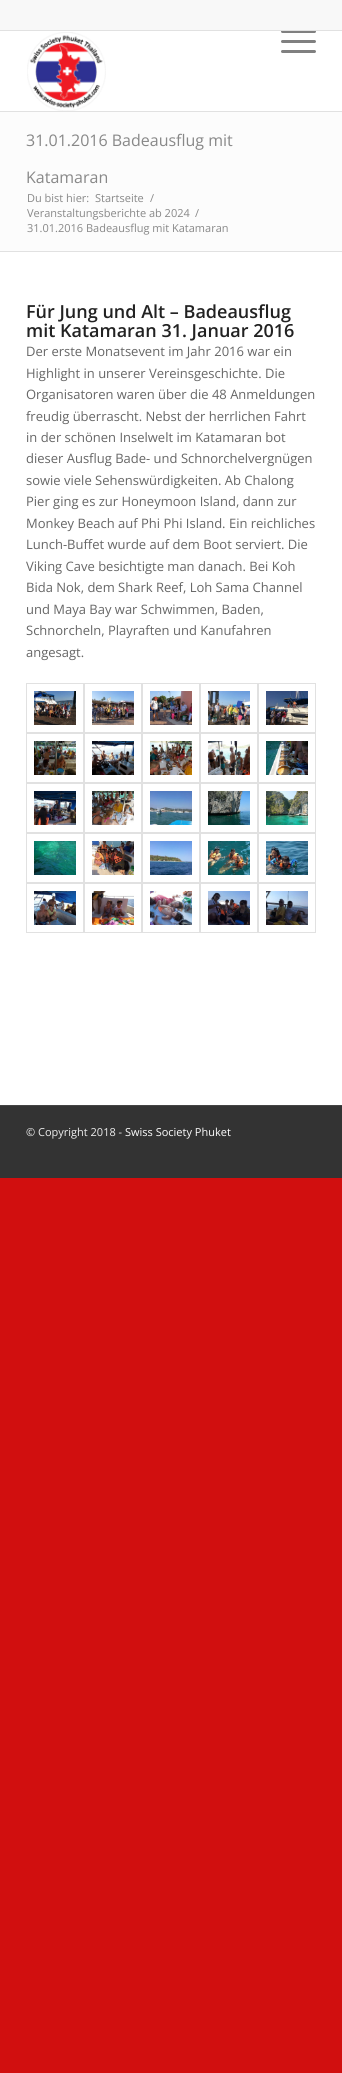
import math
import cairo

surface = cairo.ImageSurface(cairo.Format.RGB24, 342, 2073)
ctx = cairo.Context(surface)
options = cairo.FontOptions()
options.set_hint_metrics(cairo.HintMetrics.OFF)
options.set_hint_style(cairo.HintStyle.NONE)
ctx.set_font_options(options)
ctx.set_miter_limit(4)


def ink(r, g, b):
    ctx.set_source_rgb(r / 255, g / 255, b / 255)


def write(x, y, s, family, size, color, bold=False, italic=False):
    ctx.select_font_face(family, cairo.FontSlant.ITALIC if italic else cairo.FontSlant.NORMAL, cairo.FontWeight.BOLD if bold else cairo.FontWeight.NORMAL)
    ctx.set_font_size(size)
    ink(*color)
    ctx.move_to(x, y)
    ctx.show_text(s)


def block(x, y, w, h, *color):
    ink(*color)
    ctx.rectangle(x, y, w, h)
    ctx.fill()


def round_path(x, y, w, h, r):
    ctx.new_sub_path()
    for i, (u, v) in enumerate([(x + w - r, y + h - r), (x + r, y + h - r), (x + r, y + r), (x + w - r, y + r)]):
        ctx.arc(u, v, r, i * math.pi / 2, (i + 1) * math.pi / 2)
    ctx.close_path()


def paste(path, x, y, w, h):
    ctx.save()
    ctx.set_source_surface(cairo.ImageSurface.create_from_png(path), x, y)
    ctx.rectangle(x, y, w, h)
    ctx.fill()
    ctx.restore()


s1 = dict(family="Open Sans", size=16, color=(136, 136, 136))
s2 = dict(family="Open Sans", size=11, color=(136, 136, 136))
s3 = dict(family="Open Sans SemiBold", size=18, color=(34, 34, 34))
s4 = dict(family="Open Sans", size=13, color=(102, 102, 102))
s5 = dict(family="Open Sans", size=11, color=(238, 238, 238))
s6 = dict(family="Open Sans", size=11, color=(255, 255, 255))

ink(209, 15, 15)
ctx.paint()
block(0, 0, 342, 30, 248, 248, 248)
block(0, 31, 342, 80, 255, 255, 255)
ink(128, 128, 128)
round_path(281, 30, 35, 3, 1.5)
ctx.fill()
block(0, 30, 342, 1, 225, 225, 225)
block(0, 111, 342, 1, 225, 225, 225)
paste("pic1.png", 27, 32, 79, 79)
ink(128, 128, 128)
round_path(281, 40, 35, 3, 1.5)
ctx.fill()
round_path(281, 50, 35, 3, 1.5)
ctx.fill()
block(0, 252, 342, 853, 255, 255, 255)
block(0, 112, 342, 139, 252, 252, 252)
write(26, 146, "31.01.2016 Badeausflug mit", **s1)
write(26, 183, "Katamaran", **s1)
write(27, 202, "Du bist hier:", **s2)
write(95, 202, "Startseite", **s2)
write(150, 202, "/", **s2)
write(27, 217, "Veranstaltungsberichte ab 2024", **s2)
write(195, 217, "/", **s2)
write(27, 232, "31.01.2016 Badeausflug mit Katamaran", **s2)
block(0, 251, 342, 1, 225, 225, 225)
write(26, 318, "Für Jung und Alt – Badeausflug", **s3)
write(26, 337, "mit Katamaran 31. Januar 2016", **s3)
write(26, 356, "Der erste Monatsevent im Jahr 2016 war ein", **s4)
write(26, 378, "Highlight in unserer Vereinsgeschichte. Die", **s4)
write(26, 399, "Organisatoren waren über die 48 Anmeldungen", **s4)
write(26, 421, "freudig überrascht. Nebst der herrlichen Fahrt", **s4)
write(26, 442, "in der schönen Inselwelt im Katamaran bot", **s4)
write(26, 463, "dieser Ausflug Bade- und Schnorchelvergnügen", **s4)
write(26, 485, "sowie viele Sehenswürdigkeiten. Ab Chalong", **s4)
write(26, 506, "Pier ging es zur Honeymoon Island, dann zur", **s4)
write(26, 528, "Monkey Beach auf Phi Phi Island. Ein reichliches", **s4)
write(26, 549, "Lunch-Buffet wurde auf dem Boot serviert. Die", **s4)
write(26, 571, "Viking Cave besichtigte man danach. Bei Koh", **s4)
write(26, 592, "Bida Nok, dem Shark Reef, Loh Sama Channel", **s4)
write(26, 614, "und Maya Bay war Schwimmen, Baden,", **s4)
write(26, 635, "Schnorcheln, Playraften und Kanufahren", **s4)
write(26, 657, "angesagt.", **s4)
ctx.rectangle(26.5, 683.5, 57, 49)
ink(225, 225, 225)
ctx.set_line_width(1)
ctx.stroke()
paste("pic2.png", 34, 691, 42, 34)
ctx.rectangle(84.5, 683.5, 57, 49)
ctx.stroke()
paste("pic3.png", 92, 691, 42, 34)
ctx.rectangle(142.5, 683.5, 57, 49)
ctx.stroke()
paste("pic4.png", 150, 691, 42, 34)
ctx.rectangle(200.5, 683.5, 57, 49)
ctx.stroke()
paste("pic5.png", 208, 691, 42, 34)
ctx.rectangle(258.5, 683.5, 57, 49)
ctx.stroke()
paste("pic6.png", 266, 691, 42, 34)
ctx.rectangle(26.5, 733.5, 57, 49)
ctx.stroke()
paste("pic7.png", 34, 741, 42, 34)
ctx.rectangle(84.5, 733.5, 57, 49)
ctx.stroke()
paste("pic8.png", 92, 741, 42, 34)
ctx.rectangle(142.5, 733.5, 57, 49)
ctx.stroke()
paste("pic9.png", 150, 741, 42, 34)
ctx.rectangle(200.5, 733.5, 57, 49)
ctx.stroke()
paste("pic10.png", 208, 741, 42, 34)
ctx.rectangle(258.5, 733.5, 57, 49)
ctx.stroke()
paste("pic11.png", 266, 741, 42, 34)
ctx.rectangle(26.5, 783.5, 57, 49)
ctx.stroke()
paste("pic12.png", 34, 791, 42, 34)
ctx.rectangle(84.5, 783.5, 57, 49)
ctx.stroke()
paste("pic13.png", 92, 791, 42, 34)
ctx.rectangle(142.5, 783.5, 57, 49)
ctx.stroke()
paste("pic14.png", 150, 791, 42, 34)
ctx.rectangle(200.5, 783.5, 57, 49)
ctx.stroke()
paste("pic15.png", 208, 791, 42, 34)
ctx.rectangle(258.5, 783.5, 57, 49)
ctx.stroke()
paste("pic16.png", 266, 791, 42, 34)
ctx.rectangle(26.5, 833.5, 57, 49)
ctx.stroke()
paste("pic17.png", 34, 841, 42, 34)
ctx.rectangle(84.5, 833.5, 57, 49)
ctx.stroke()
paste("pic18.png", 92, 841, 42, 34)
ctx.rectangle(142.5, 833.5, 57, 49)
ctx.stroke()
paste("pic19.png", 150, 841, 42, 34)
ctx.rectangle(200.5, 833.5, 57, 49)
ctx.stroke()
paste("pic20.png", 208, 841, 42, 34)
ctx.rectangle(258.5, 833.5, 57, 49)
ctx.stroke()
paste("pic21.png", 266, 841, 42, 34)
ctx.rectangle(26.5, 883.5, 57, 49)
ctx.stroke()
paste("pic22.png", 34, 891, 42, 34)
ctx.rectangle(84.5, 883.5, 57, 49)
ctx.stroke()
paste("pic23.png", 92, 891, 42, 34)
ctx.rectangle(142.5, 883.5, 57, 49)
ctx.stroke()
paste("pic24.png", 150, 891, 42, 34)
ctx.rectangle(200.5, 883.5, 57, 49)
ctx.stroke()
paste("pic25.png", 208, 891, 42, 34)
ctx.rectangle(258.5, 883.5, 57, 49)
ctx.stroke()
paste("pic26.png", 266, 891, 42, 34)
block(0, 1106, 342, 72, 51, 51, 51)
block(0, 1105, 342, 1, 68, 68, 68)
write(26, 1136, "© Copyright 2018 -", **s5)
write(125, 1136, "Swiss Society Phuket", **s6)
surface.write_to_png("screenshot.png")
